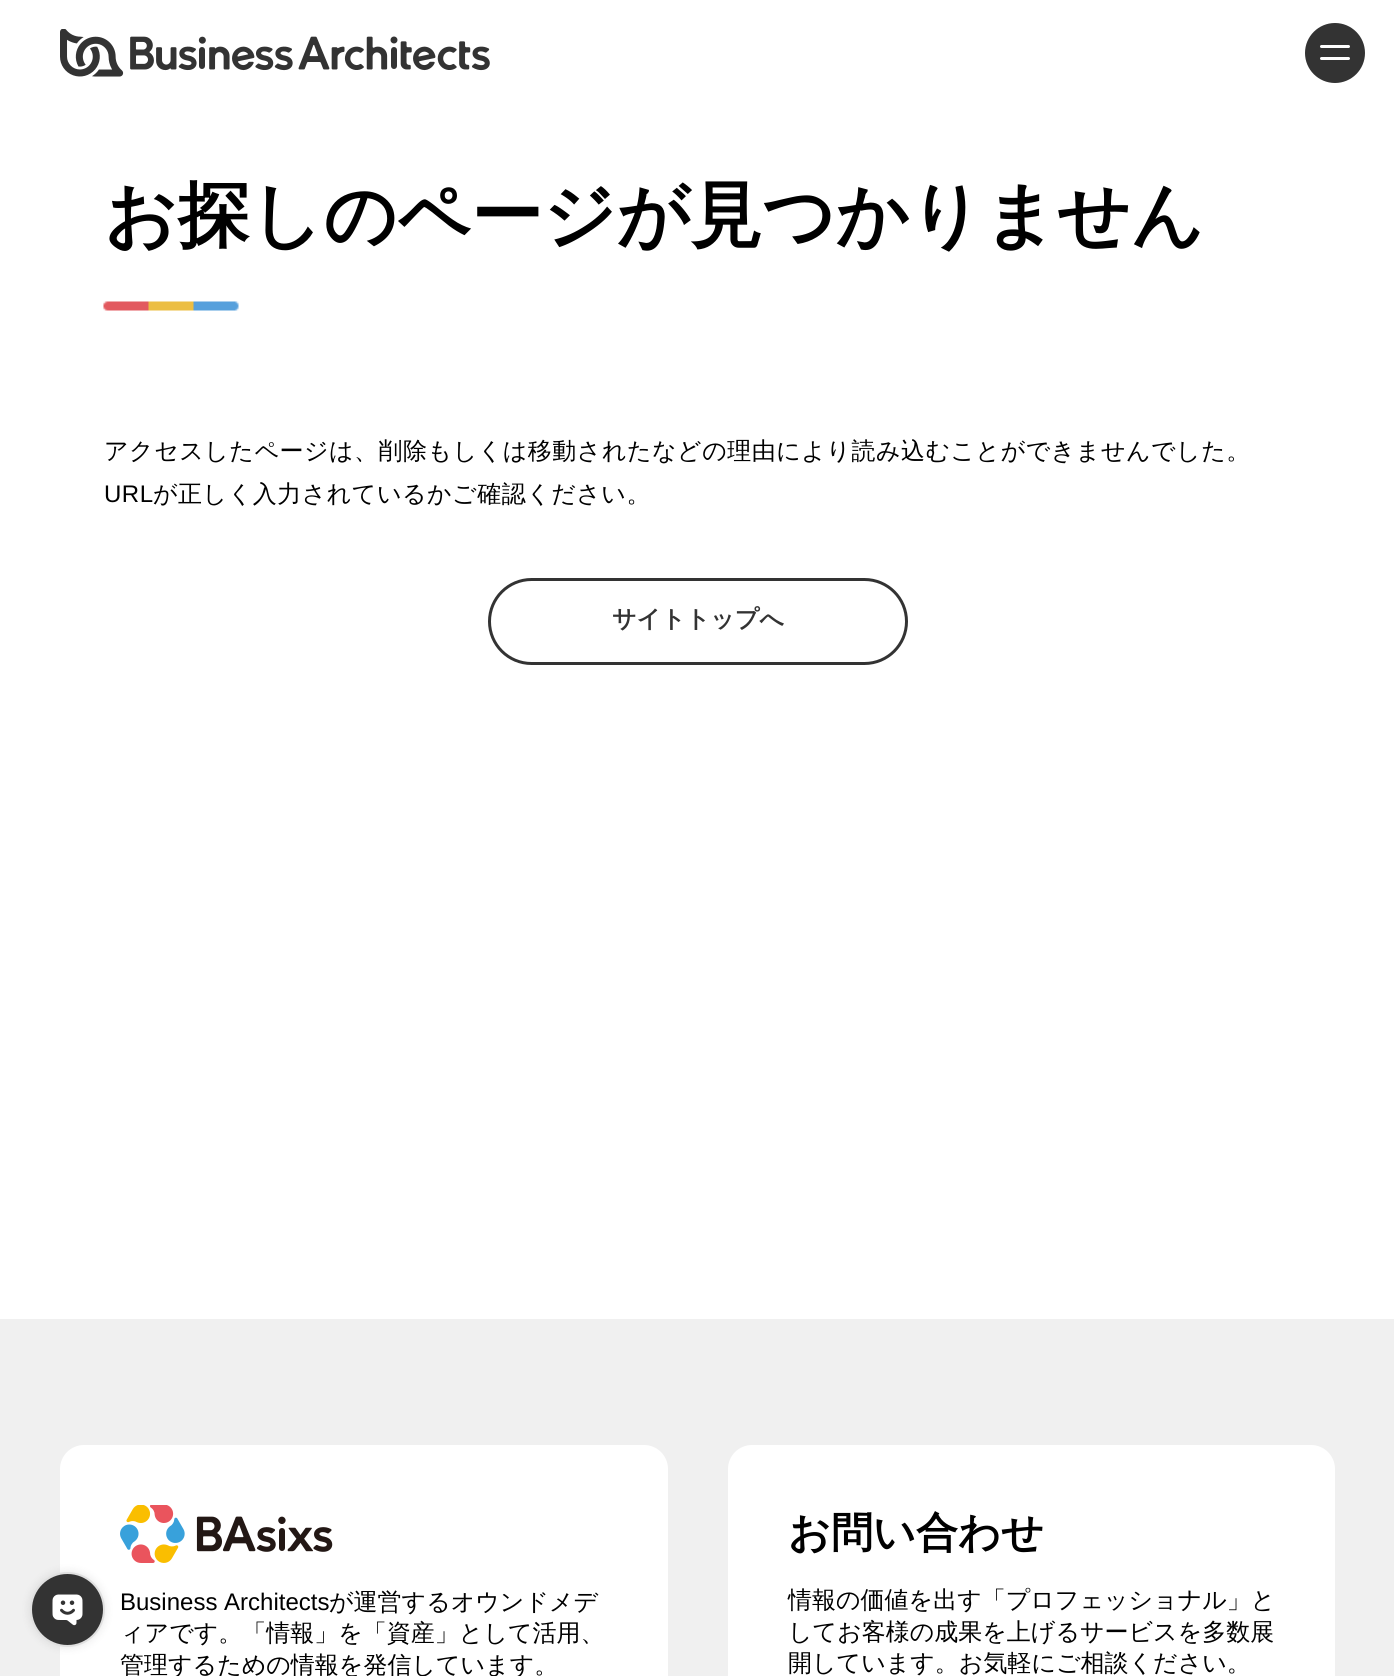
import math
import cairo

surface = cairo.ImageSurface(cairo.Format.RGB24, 1394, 1676)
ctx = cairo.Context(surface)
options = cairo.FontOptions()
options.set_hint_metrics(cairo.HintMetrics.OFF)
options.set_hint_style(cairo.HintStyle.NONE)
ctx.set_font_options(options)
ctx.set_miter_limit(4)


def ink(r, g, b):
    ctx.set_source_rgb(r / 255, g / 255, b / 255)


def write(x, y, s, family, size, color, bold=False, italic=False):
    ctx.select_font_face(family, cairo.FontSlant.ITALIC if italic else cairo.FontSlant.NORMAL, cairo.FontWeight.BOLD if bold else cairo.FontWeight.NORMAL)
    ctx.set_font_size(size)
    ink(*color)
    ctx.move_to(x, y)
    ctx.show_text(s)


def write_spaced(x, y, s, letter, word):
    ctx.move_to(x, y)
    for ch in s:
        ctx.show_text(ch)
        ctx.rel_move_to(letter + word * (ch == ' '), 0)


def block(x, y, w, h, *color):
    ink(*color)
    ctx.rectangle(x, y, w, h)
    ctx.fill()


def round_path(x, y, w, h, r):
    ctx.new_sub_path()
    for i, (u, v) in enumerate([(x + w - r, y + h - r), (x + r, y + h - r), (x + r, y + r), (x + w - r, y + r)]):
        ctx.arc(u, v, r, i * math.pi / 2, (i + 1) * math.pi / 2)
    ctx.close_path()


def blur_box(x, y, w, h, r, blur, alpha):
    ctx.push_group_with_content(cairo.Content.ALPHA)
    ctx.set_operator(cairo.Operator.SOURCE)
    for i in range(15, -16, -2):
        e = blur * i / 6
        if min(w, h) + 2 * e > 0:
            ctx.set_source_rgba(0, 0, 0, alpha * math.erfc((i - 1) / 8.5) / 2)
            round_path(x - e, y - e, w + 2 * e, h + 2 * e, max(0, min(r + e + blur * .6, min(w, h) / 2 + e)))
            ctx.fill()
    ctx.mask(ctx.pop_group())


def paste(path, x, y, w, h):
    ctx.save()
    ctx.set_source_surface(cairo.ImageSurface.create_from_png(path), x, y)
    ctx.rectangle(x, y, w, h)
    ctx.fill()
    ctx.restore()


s1 = dict(family="WenQuanYi Zen Hei", size=72, color=(0, 0, 0), bold=True)
s2 = dict(family="WenQuanYi Zen Hei", size=24, color=(51, 51, 51), bold=True)
s3 = dict(family="Liberation Sans", size=24, color=(0, 0, 0))
s4 = dict(family="WenQuanYi Zen Hei Medium", size=24, color=(0, 0, 0))
s5 = dict(family="WenQuanYi Zen Hei", size=42, color=(0, 0, 0), bold=True)

ink(255, 255, 255)
ctx.paint()
block(0, 1319, 1394, 357, 240, 240, 240)
ink(255, 255, 255)
round_path(60, 1445, 608, 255, 24)
ctx.fill()
ink(0, 0, 0)
blur_box(30, 1572, 75, 75, 37.5, 4.5, 0.1)
ink(51, 51, 51)
ctx.arc(67.5, 1609.5, 36.5, 0, 2 * math.pi)
ctx.fill_preserve()
ink(224, 224, 224)
ctx.stroke()
paste("pic1.png", 52, 1594, 31, 32)
paste("pic2.png", 60, 29, 430, 48)
ink(51, 51, 51)
ctx.arc(1335, 53, 30, 0, 2 * math.pi)
ctx.fill()
ink(255, 255, 255)
round_path(1320, 45, 30, 3, 1.5)
ctx.fill()
round_path(1320, 57, 30, 3, 1.5)
ctx.fill()
write(104, 240, "お探しのページが見つかりません", **s1)
paste("pic3.png", 103, 301, 136, 10)
ctx.select_font_face("WenQuanYi Zen Hei Medium")
ctx.set_font_size(24)
write_spaced(104, 459, "アクセスしたページは、削除もしくは移動されたなどの理由により読み込むことができませんでした。", 0.5, 0)
ctx.select_font_face("Liberation Sans")
write_spaced(104, 502, "URL", 0.5, 0)
ctx.select_font_face("WenQuanYi Zen Hei Medium")
write_spaced(153, 502, "が正しく入力されているかご確認ください。", 0.5, 0)
round_path(489.5, 579.5, 417, 84, 42)
ink(51, 51, 51)
ctx.set_line_width(3)
ctx.stroke()
write(612, 627, "サイトトップへ", **s2)
paste("pic4.png", 120, 1505, 213, 58)
write(120, 1610, "Business Architects", **s3)
write(329, 1610, "が運営するオウンドメデ", **s4)
write(120, 1641, "ィアです。「情報」を「資産」として活用、", **s4)
write(120, 1673, "管理するための情報を発信しています。", **s4)
ink(255, 255, 255)
round_path(728, 1445, 607, 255, 24)
ctx.fill()
write(788, 1547, "お問い合わせ", **s5)
write(788, 1608, "情報の価値を出す「プロフェッショナル」と", **s4)
write(788, 1640, "してお客様の成果を上げるサービスを多数展", **s4)
write(788, 1671, "開しています。お気軽にご相談ください。", **s4)
surface.write_to_png("screenshot.png")
